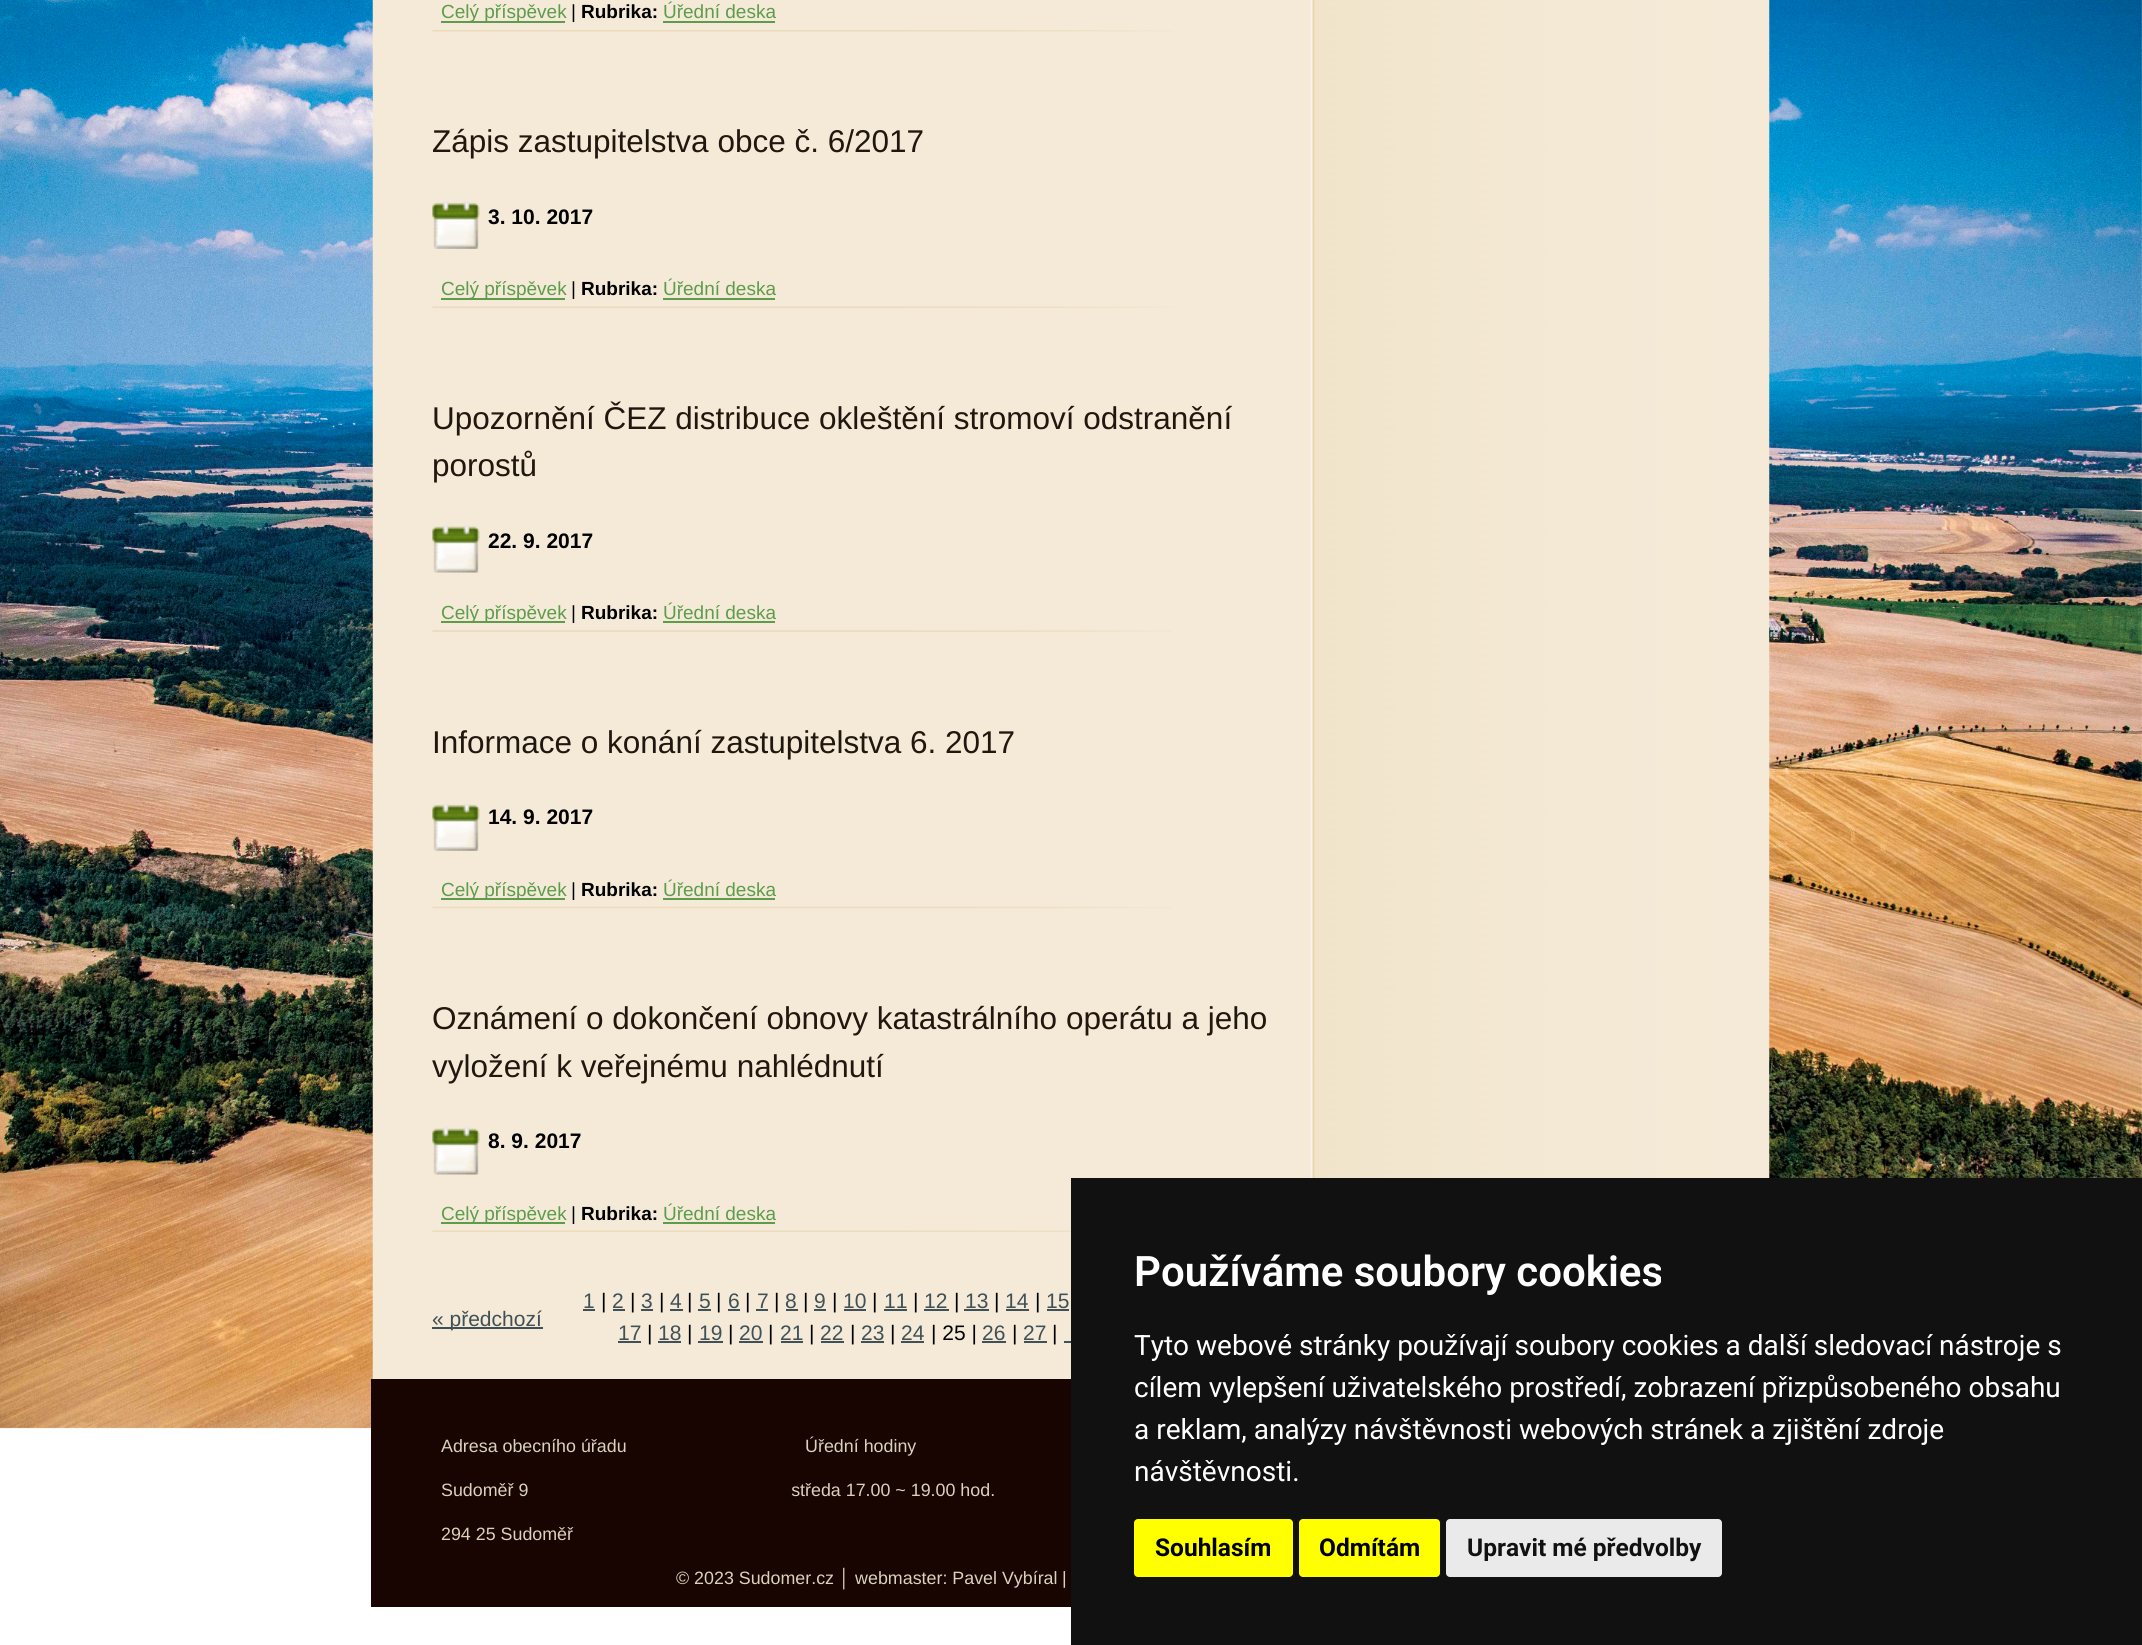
import math
import cairo

surface = cairo.ImageSurface(cairo.Format.RGB24, 2142, 1645)
ctx = cairo.Context(surface)
options = cairo.FontOptions()
options.set_hint_metrics(cairo.HintMetrics.OFF)
options.set_hint_style(cairo.HintStyle.NONE)
ctx.set_font_options(options)
ctx.set_miter_limit(4)


def ink(r, g, b):
    ctx.set_source_rgb(r / 255, g / 255, b / 255)


def write(x, y, s, family, size, color, bold=False, italic=False):
    ctx.select_font_face(family, cairo.FontSlant.ITALIC if italic else cairo.FontSlant.NORMAL, cairo.FontWeight.BOLD if bold else cairo.FontWeight.NORMAL)
    ctx.set_font_size(size)
    ink(*color)
    ctx.move_to(x, y)
    ctx.show_text(s)


def block(x, y, w, h, *color):
    ink(*color)
    ctx.rectangle(x, y, w, h)
    ctx.fill()


def round_path(x, y, w, h, r):
    ctx.new_sub_path()
    for i, (u, v) in enumerate([(x + w - r, y + h - r), (x + r, y + h - r), (x + r, y + r), (x + w - r, y + r)]):
        ctx.arc(u, v, r, i * math.pi / 2, (i + 1) * math.pi / 2)
    ctx.close_path()


def paste(path, x, y, w, h):
    ctx.save()
    ctx.set_source_surface(cairo.ImageSurface.create_from_png(path), x, y)
    ctx.rectangle(x, y, w, h)
    ctx.fill()
    ctx.restore()


s1 = dict(family="Liberation Sans", size=19, color=(92, 156, 75))
s2 = dict(family="Liberation Sans", size=19, color=(0, 0, 0))
s3 = dict(family="Liberation Sans", size=19, color=(0, 0, 0), bold=True)
s4 = dict(family="Liberation Sans", size=31.5, color=(34, 23, 15))
s5 = dict(family="Liberation Sans", size=21, color=(0, 0, 0), bold=True)
s6 = dict(family="Liberation Sans", size=21, color=(63, 80, 87))
s7 = dict(family="Liberation Sans", size=21, color=(0, 0, 0))
s8 = dict(family="Liberation Sans", size=17.85, color=(218, 210, 189))
s9 = dict(family="Roboto SemiBold", size=42, color=(255, 255, 255))
s10 = dict(family="Roboto", size=28, color=(255, 255, 255))
s11 = dict(family="Roboto", size=24.5, color=(0, 0, 0), bold=True)
s12 = dict(family="Roboto", size=24.5, color=(17, 17, 17), bold=True)

ink(255, 255, 255)
ctx.paint()
paste("pic1.png", 0, 0, 2142, 1429)
paste("pic2.png", 372, 0, 1398, 1379)
paste("pic3.png", 432, 30, 741, 2)
block(441, 21, 124, 2, 92, 156, 75)
write(441, 18, "Celý příspěvek", **s1)
write(571, 18, "|", **s2)
write(581, 18, "Rubrika:", **s3)
write(663, 18, "Úřední deska", **s1)
block(663, 21, 112, 2, 92, 156, 75)
write(432, 152, "Zápis zastupitelstva obce č. 6/2017", **s4)
paste("pic4.png", 432, 201, 48, 48)
write(488, 224, "3. 10. 2017", **s5)
paste("pic5.png", 432, 306, 741, 2)
block(441, 298, 124, 2, 92, 156, 75)
write(441, 295, "Celý příspěvek", **s1)
write(571, 295, "|", **s2)
write(581, 295, "Rubrika:", **s3)
write(663, 295, "Úřední deska", **s1)
block(663, 298, 112, 2, 92, 156, 75)
write(432, 429, "Upozornění ČEZ distribuce okleštění stromoví odstranění", **s4)
write(432, 476, "porostů", **s4)
paste("pic6.png", 432, 525, 48, 48)
write(488, 548, "22. 9. 2017", **s5)
paste("pic7.png", 432, 630, 741, 2)
block(441, 621, 124, 2, 92, 156, 75)
write(441, 619, "Celý příspěvek", **s1)
write(571, 619, "|", **s2)
write(581, 619, "Rubrika:", **s3)
write(663, 619, "Úřední deska", **s1)
block(663, 621, 112, 2, 92, 156, 75)
write(432, 753, "Informace o konání zastupitelstva 6. 2017", **s4)
paste("pic4.png", 432, 803, 48, 48)
write(488, 824, "14. 9. 2017", **s5)
paste("pic8.png", 432, 906, 741, 3)
block(441, 898, 124, 2, 92, 156, 75)
write(441, 896, "Celý příspěvek", **s1)
write(571, 896, "|", **s2)
write(581, 896, "Rubrika:", **s3)
write(663, 896, "Úřední deska", **s1)
block(663, 898, 112, 2, 92, 156, 75)
write(432, 1029, "Oznámení o dokončení obnovy katastrálního operátu a jeho", **s4)
write(432, 1077, "vyložení k veřejnému nahlédnutí", **s4)
paste("pic6.png", 432, 1127, 48, 48)
write(488, 1148, "8. 9. 2017", **s5)
paste("pic9.png", 432, 1230, 639, 2)
block(441, 1222, 124, 2, 92, 156, 75)
write(441, 1220, "Celý příspěvek", **s1)
write(571, 1220, "|", **s2)
write(581, 1220, "Rubrika:", **s3)
write(663, 1220, "Úřední deska", **s1)
block(663, 1222, 112, 2, 92, 156, 75)
block(432, 1327, 111, 2, 63, 80, 87)
write(432, 1326, "« předchozí", **s6)
write(583, 1308, "1", **s6)
block(583, 1309, 12, 2, 63, 80, 87)
write(601, 1308, "|", **s7)
write(612, 1308, "2", **s6)
block(613, 1309, 12, 2, 63, 80, 87)
write(630, 1308, "|", **s7)
write(641, 1308, "3", **s6)
block(641, 1309, 12, 2, 63, 80, 87)
write(659, 1308, "|", **s7)
write(670, 1308, "4", **s6)
block(670, 1309, 13, 2, 63, 80, 87)
write(687, 1308, "|", **s7)
write(699, 1308, "5", **s6)
block(698, 1309, 13, 2, 63, 80, 87)
write(716, 1308, "|", **s7)
write(728, 1308, "6", **s6)
block(728, 1309, 12, 2, 63, 80, 87)
write(745, 1308, "|", **s7)
write(757, 1308, "7", **s6)
block(756, 1309, 12, 2, 63, 80, 87)
write(774, 1308, "|", **s7)
write(785, 1308, "8", **s6)
block(786, 1309, 12, 2, 63, 80, 87)
write(803, 1308, "|", **s7)
write(814, 1308, "9", **s6)
block(814, 1309, 12, 2, 63, 80, 87)
write(832, 1308, "|", **s7)
write(843, 1308, "10", **s6)
block(844, 1309, 22, 2, 63, 80, 87)
write(872, 1308, "|", **s7)
write(884, 1308, "11", **s6)
block(884, 1309, 23, 2, 63, 80, 87)
write(913, 1308, "|", **s7)
write(924, 1308, "12", **s6)
block(924, 1309, 25, 2, 63, 80, 87)
write(954, 1308, "|", **s7)
write(965, 1308, "13", **s6)
block(964, 1309, 25, 2, 63, 80, 87)
write(994, 1308, "|", **s7)
write(1005, 1308, "14", **s6)
block(1006, 1309, 23, 2, 63, 80, 87)
write(1035, 1308, "|", **s7)
write(1046, 1308, "15", **s6)
block(1047, 1309, 22, 2, 63, 80, 87)
write(618, 1340, "17", **s6)
block(618, 1341, 23, 2, 63, 80, 87)
write(647, 1340, "|", **s7)
write(658, 1340, "18", **s6)
block(658, 1341, 23, 2, 63, 80, 87)
write(687, 1340, "|", **s7)
write(699, 1340, "19", **s6)
block(698, 1341, 25, 2, 63, 80, 87)
write(728, 1340, "|", **s7)
write(739, 1340, "20", **s6)
block(739, 1341, 24, 2, 63, 80, 87)
write(768, 1340, "|", **s7)
write(780, 1340, "21", **s6)
block(781, 1341, 22, 2, 63, 80, 87)
write(809, 1340, "|", **s7)
write(820, 1340, "22", **s6)
block(821, 1341, 23, 2, 63, 80, 87)
write(850, 1340, "|", **s7)
write(861, 1340, "23", **s6)
block(861, 1341, 23, 2, 63, 80, 87)
write(890, 1340, "|", **s7)
write(901, 1340, "24", **s6)
block(901, 1341, 23, 2, 63, 80, 87)
write(931, 1340, "| 25 |", **s7)
write(982, 1340, "26", **s6)
block(982, 1341, 24, 2, 63, 80, 87)
write(1012, 1340, "|", **s7)
write(1023, 1340, "27", **s6)
block(1024, 1341, 23, 2, 63, 80, 87)
write(1052, 1340, "|", **s7)
block(1064, 1341, 7, 2, 63, 80, 87)
block(371, 1379, 700, 228, 24, 4, 0)
write(441, 1452, "Adresa obecního úřadu                                    Úřední hodiny", **s8)
write(441, 1496, "Sudoměř 9                                                     středa 17.00 ~ 19.00 hod.", **s8)
write(441, 1540, "294 25 Sudoměř", **s8)
write(676, 1584, "© 2023 Sudomer.cz │ webmaster: Pavel Vybíral", **s8)
write(1062, 1584, "|", **s8)
block(1071, 1178, 1071, 467, 17, 17, 17)
write(1134, 1286, "Používáme soubory cookies", **s9)
write(1134, 1355, "Tyto webové stránky používají soubory cookies a další sledovací nástroje s", **s10)
write(1134, 1397, "cílem vylepšení uživatelského prostředí, zobrazení přizpůsobeného obsahu", **s10)
write(1134, 1439, "a reklam, analýzy návštěvnosti webových stránek a zjištění zdroje", **s10)
write(1134, 1481, "návštěvnosti.", **s10)
ink(255, 255, 0)
round_path(1134, 1519, 159, 58, 4)
ctx.fill()
write(1155, 1556, "Souhlasím", **s11)
ink(255, 255, 0)
round_path(1299, 1519, 141, 58, 4)
ctx.fill()
write(1319, 1556, "Odmítám", **s11)
ink(234, 234, 234)
round_path(1446, 1519, 276, 58, 4)
ctx.fill()
write(1467, 1556, "Upravit mé předvolby", **s12)
surface.write_to_png("screenshot.png")
